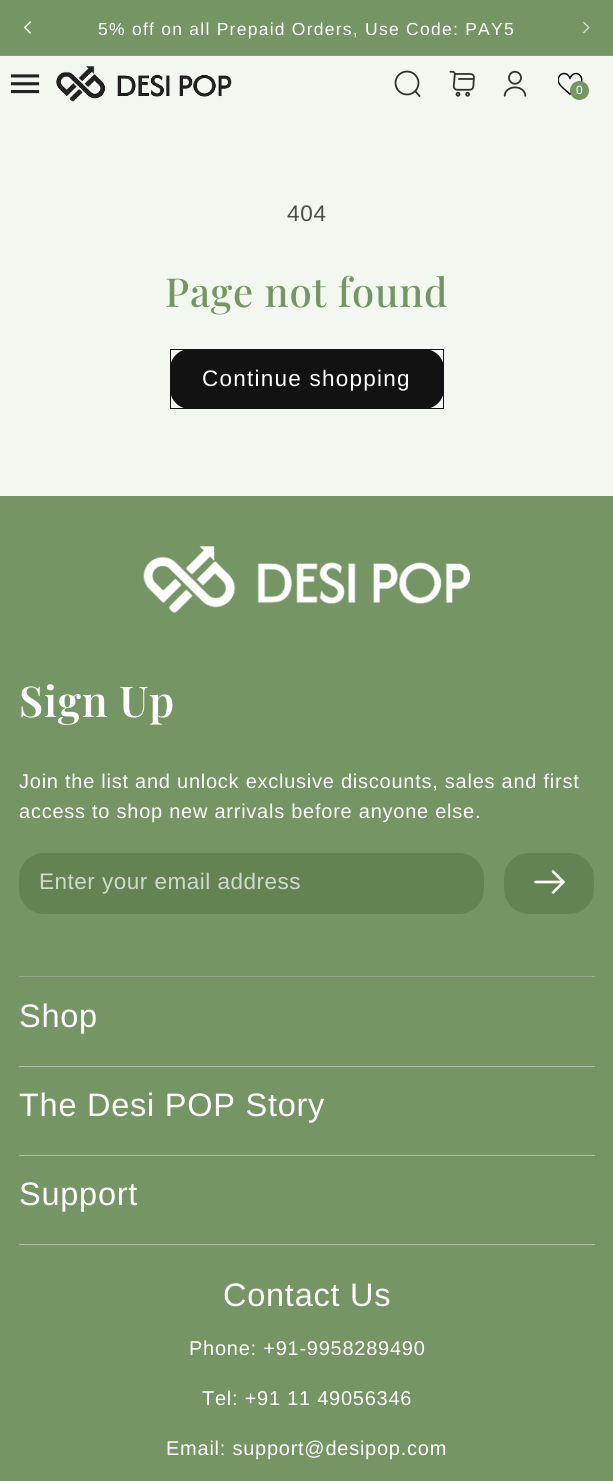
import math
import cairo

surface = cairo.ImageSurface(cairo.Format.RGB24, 613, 1481)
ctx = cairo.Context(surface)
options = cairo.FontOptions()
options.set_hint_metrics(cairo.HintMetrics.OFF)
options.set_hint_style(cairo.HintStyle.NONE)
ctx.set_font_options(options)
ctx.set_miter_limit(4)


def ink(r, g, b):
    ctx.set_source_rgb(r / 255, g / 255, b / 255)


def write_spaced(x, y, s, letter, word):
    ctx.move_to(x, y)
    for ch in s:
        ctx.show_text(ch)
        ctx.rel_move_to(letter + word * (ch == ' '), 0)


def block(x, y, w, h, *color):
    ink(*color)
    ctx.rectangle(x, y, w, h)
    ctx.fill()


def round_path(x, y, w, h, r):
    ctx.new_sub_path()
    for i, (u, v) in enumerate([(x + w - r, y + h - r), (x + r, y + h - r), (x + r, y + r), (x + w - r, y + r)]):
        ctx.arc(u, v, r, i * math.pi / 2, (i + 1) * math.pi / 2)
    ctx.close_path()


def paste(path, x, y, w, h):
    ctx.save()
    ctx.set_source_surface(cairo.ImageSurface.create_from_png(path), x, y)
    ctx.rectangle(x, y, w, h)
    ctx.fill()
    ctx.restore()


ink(242, 248, 239)
ctx.paint()
block(0, 0, 613, 55, 117, 149, 101)
block(0, 55, 613, 1, 128, 157, 113)
paste("pic1.png", 24, 21, 7, 13)
ctx.select_font_face("Liberation Sans")
ctx.set_font_size(17.5)
ink(255, 255, 255)
write_spaced(98, 35, "5% off on all Prepaid Orders, Use Code: PAY5", 1.25, 0)
paste("pic2.png", 583, 21, 7, 13)
paste("pic3.png", 10, 74, 30, 20)
paste("pic4.png", 56, 66, 176, 36)
ctx.arc(407, 83, 11.5, 0, 2 * math.pi)
ink(49, 48, 48)
ctx.set_line_width(1.8)
ctx.stroke()
ctx.new_path()
ctx.move_to(415.5, 91.5)
ctx.line_to(419.5, 96)
ctx.set_line_cap(cairo.LineCap.ROUND)
ctx.stroke()
paste("pic5.png", 449, 70, 26, 27)
paste("pic6.png", 503, 70, 24, 27)
paste("pic7.png", 558, 72, 25, 23)
ink(117, 149, 101)
ctx.arc(579.5, 90.5, 9.5, 0, 2 * math.pi)
ctx.fill()
ctx.set_font_size(12)
ink(255, 255, 255)
write_spaced(576, 94, "0", 0.75, 0)
ctx.set_font_size(22.5)
ink(74, 76, 73)
write_spaced(287, 221, "404", 0.75, 0)
ctx.select_font_face("Playfair Display Medium")
ctx.set_font_size(40)
ink(117, 149, 101)
write_spaced(165, 307, "Page not found", 0.75, 0)
ink(18, 18, 18)
round_path(170, 349, 274, 60, 20)
ctx.fill()
ctx.rectangle(170.5, 349.5, 273, 59)
ctx.set_line_width(1)
ctx.set_line_cap(cairo.LineCap.BUTT)
ctx.stroke()
ctx.select_font_face("Liberation Sans")
ctx.set_font_size(22.5)
ink(255, 255, 255)
write_spaced(202, 386, "Continue shopping", 1.25, 0)
block(0, 496, 613, 985, 117, 149, 101)
block(19, 976, 576, 1, 145, 170, 132)
paste("pic8.png", 143, 546, 327, 67)
ctx.select_font_face("Playfair Display SemiBold")
ctx.set_font_size(42.5)
ink(255, 255, 255)
write_spaced(19, 717, "Sign Up", 0.75, 0)
ctx.select_font_face("Liberation Sans")
ctx.set_font_size(20)
write_spaced(19, 788, "Join the list and unlock exclusive discounts, sales and first", 0.75, 0)
write_spaced(19, 818, "access to shop new arrivals before anyone else.", 0.75, 0)
ink(99, 132, 82)
round_path(19, 853, 465, 61, 25)
ctx.fill()
ctx.set_font_size(22.5)
ink(208, 218, 203)
write_spaced(39, 889, "Enter your email address", 0.5, 0)
ink(99, 132, 82)
round_path(504, 853, 90, 61, 25)
ctx.fill()
ctx.new_path()
ctx.move_to(535.5, 882)
ctx.line_to(563.5, 882)
ctx.move_to(563.5, 882)
ctx.line_to(553, 871.5)
ctx.move_to(563.5, 882)
ctx.line_to(553, 892.5)
ink(255, 255, 255)
ctx.set_line_width(2.6)
ctx.set_line_cap(cairo.LineCap.ROUND)
ctx.set_line_join(cairo.LineJoin.ROUND)
ctx.stroke()
ctx.set_font_size(32.5)
write_spaced(19, 1027, "Shop", 0.75, 0)
block(19, 1066, 576, 1, 172, 191, 163)
ink(255, 255, 255)
write_spaced(19, 1116, "The Desi POP Story", 0.75, 0)
block(19, 1155, 576, 1, 172, 191, 163)
ink(255, 255, 255)
write_spaced(19, 1205, "Support", 0.75, 0)
block(19, 1244, 576, 1, 172, 191, 163)
ink(255, 255, 255)
write_spaced(223, 1306, "Contact Us", 0.75, 0)
ctx.set_font_size(20)
write_spaced(189, 1355, "Phone: +91-9958289490", 0.75, 0)
write_spaced(202, 1405, "Tel: +91 11 49056346", 0.75, 0)
write_spaced(166, 1455, "Email: support@desipop.com", 0.75, 0)
surface.write_to_png("screenshot.png")
